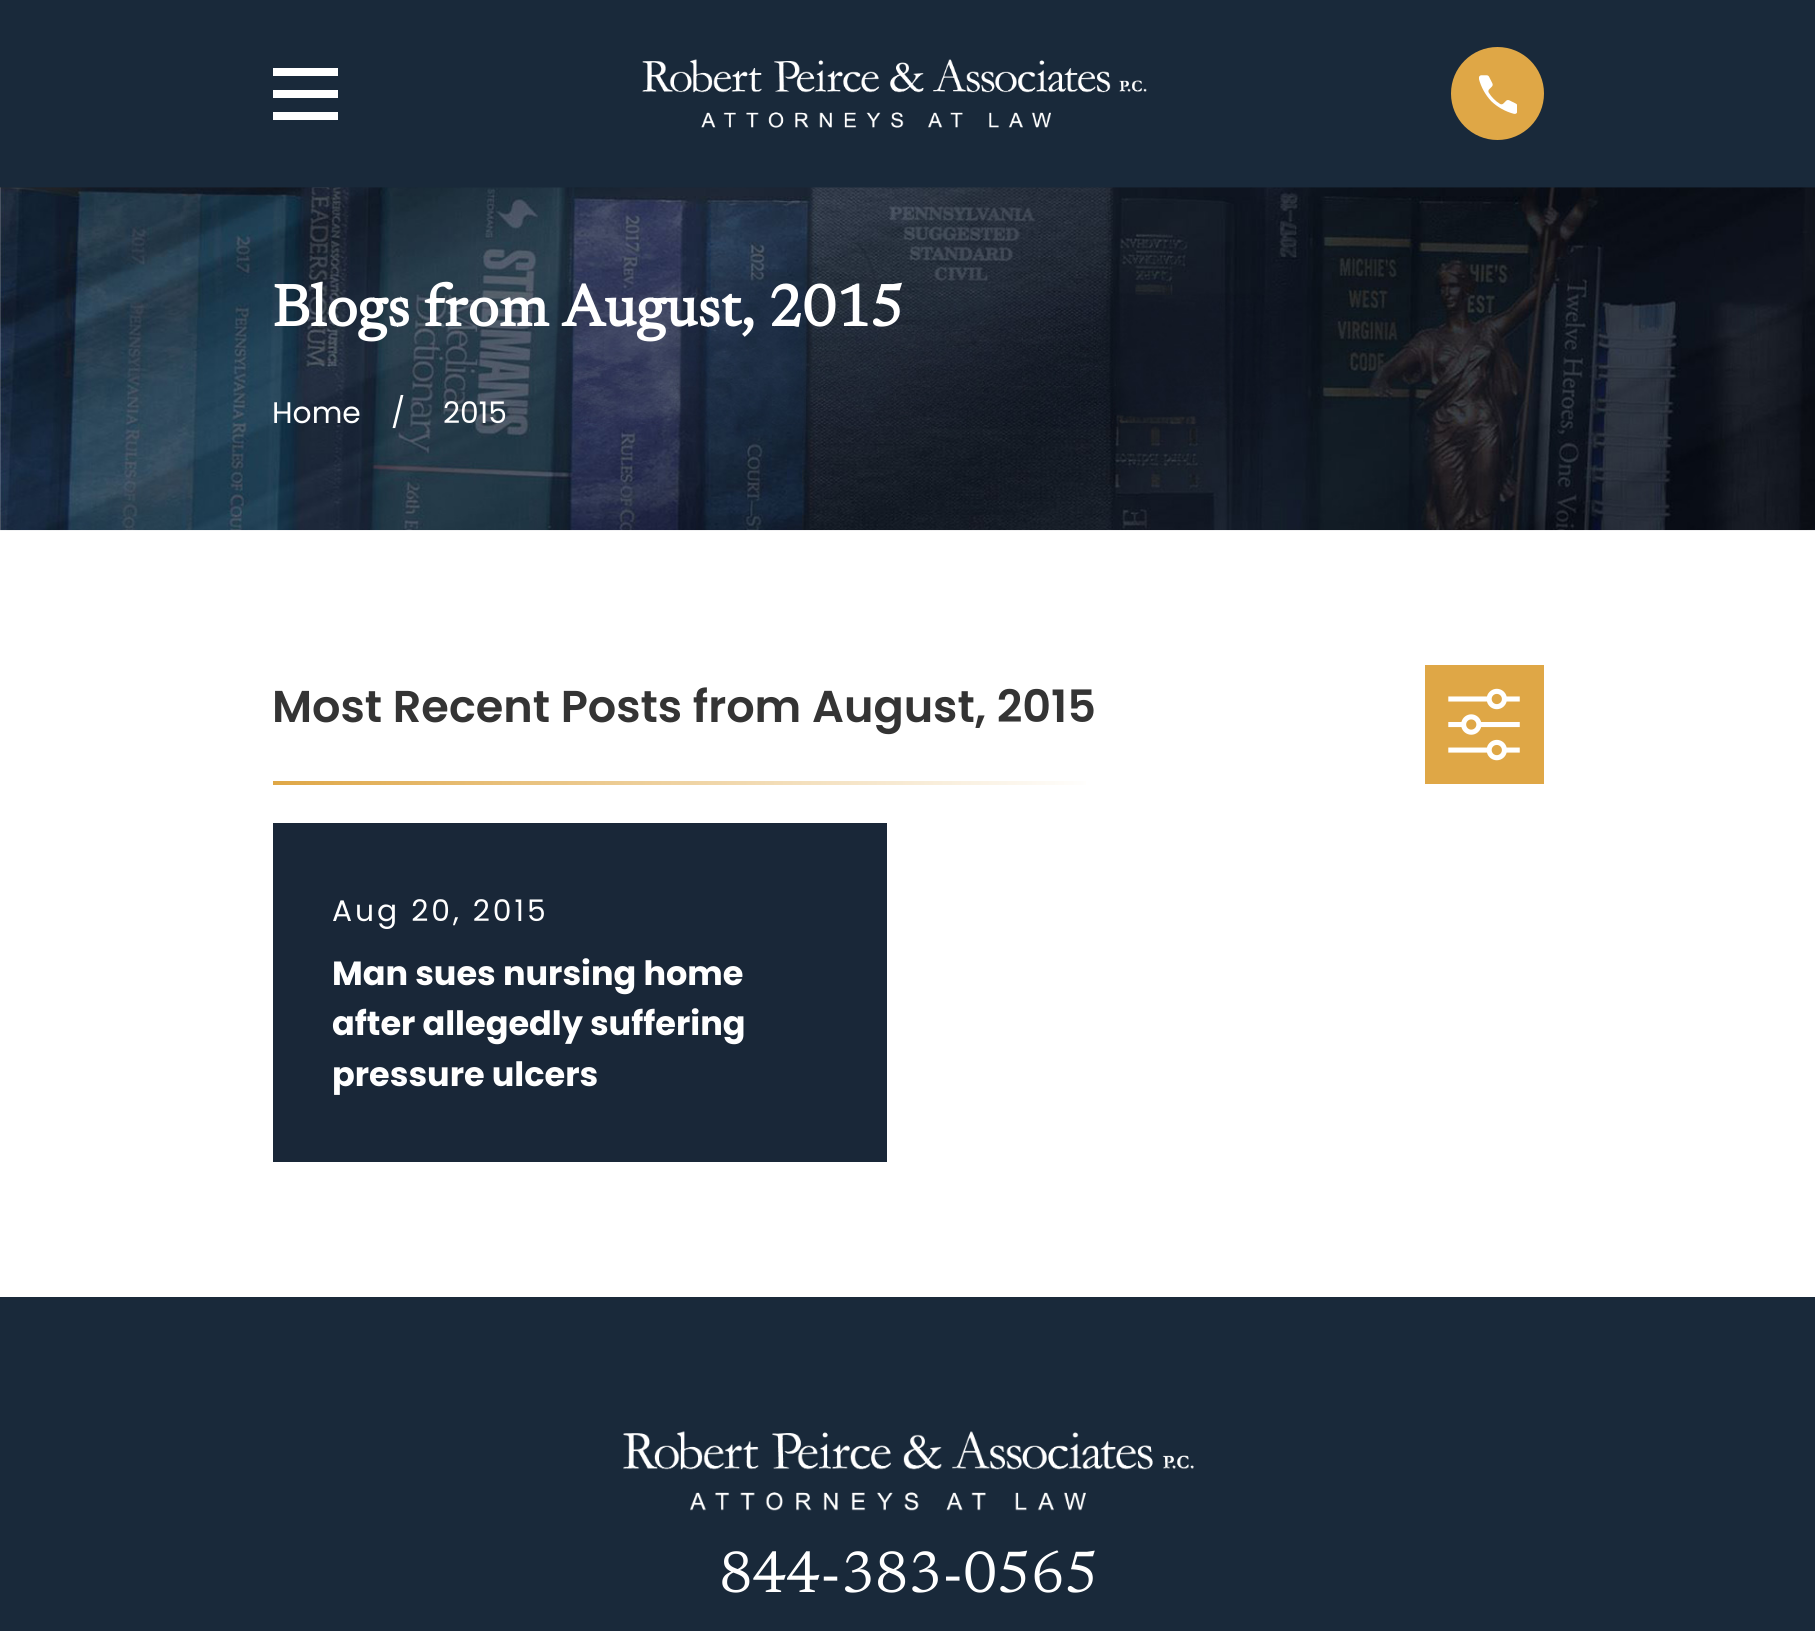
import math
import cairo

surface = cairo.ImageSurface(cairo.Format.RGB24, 1815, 1631)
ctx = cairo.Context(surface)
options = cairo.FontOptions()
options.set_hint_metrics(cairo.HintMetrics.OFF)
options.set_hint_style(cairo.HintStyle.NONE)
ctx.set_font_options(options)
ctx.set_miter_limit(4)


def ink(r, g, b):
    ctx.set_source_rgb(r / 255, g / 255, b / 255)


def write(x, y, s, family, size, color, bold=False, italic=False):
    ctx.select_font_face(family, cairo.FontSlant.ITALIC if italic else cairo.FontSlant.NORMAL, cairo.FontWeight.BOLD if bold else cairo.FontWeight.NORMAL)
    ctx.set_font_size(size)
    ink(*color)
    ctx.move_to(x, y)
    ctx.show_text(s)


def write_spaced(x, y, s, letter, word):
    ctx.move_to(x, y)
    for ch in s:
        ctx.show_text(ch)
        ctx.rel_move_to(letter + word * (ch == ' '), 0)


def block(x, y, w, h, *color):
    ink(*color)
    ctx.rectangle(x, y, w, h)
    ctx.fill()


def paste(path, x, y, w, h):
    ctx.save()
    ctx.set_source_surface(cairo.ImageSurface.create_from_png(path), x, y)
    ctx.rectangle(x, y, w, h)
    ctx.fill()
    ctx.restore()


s1 = dict(family="Newsreader", size=59.5, color=(255, 255, 255), bold=True)
s2 = dict(family="Poppins", size=29.75, color=(255, 255, 255))
s3 = dict(family="Poppins SemiBold", size=44.6, color=(52, 52, 52))
s4 = dict(family="Poppins", size=33.5, color=(255, 255, 255), bold=True)
s5 = dict(family="Newsreader", size=59.5, color=(255, 255, 255))

ink(255, 255, 255)
ctx.paint()
block(0, 0, 1815, 188, 25, 41, 58)
ink(255, 255, 255)
ctx.new_path()
ctx.move_to(273, 68)
ctx.line_to(273, 76)
ctx.line_to(338, 76)
ctx.line_to(338, 68)
ctx.close_path()
ctx.move_to(273, 90)
ctx.line_to(273, 98)
ctx.line_to(338, 98)
ctx.line_to(338, 90)
ctx.close_path()
ctx.move_to(273, 112)
ctx.line_to(273, 120)
ctx.line_to(338, 120)
ctx.line_to(338, 112)
ctx.close_path()
ctx.fill()
paste("pic1.png", 642, 59, 505, 69)
ink(223, 167, 70)
ctx.arc(1497.5, 93.5, 46.5, 0, 2 * math.pi)
ctx.fill()
paste("pic2.png", 1479, 75, 38, 39)
paste("pic3.png", 0, 187, 1815, 344)
write(272, 326, "Blogs from August, 2015", **s1)
write(272, 423, "Home", **s2)
write(391, 423, "/", **s2)
write(443, 423, "2015", **s2)
write(272, 722, "Most Recent Posts from August, 2015", **s3)
gradient = cairo.LinearGradient(273, 782, 1097, 782)
gradient.add_color_stop_rgba(0, 0.875, 0.655, 0.275, 1)
gradient.add_color_stop_rgba(1, 1, 1, 1, 1)
ctx.set_source(gradient)
ctx.rectangle(273, 781, 813, 4)
ctx.fill()
block(1425, 665, 119, 119, 223, 167, 70)
paste("pic4.png", 1448, 688, 72, 73)
block(273, 823, 614, 339, 25, 39, 56)
ctx.select_font_face("Poppins")
ctx.set_font_size(29.75)
ink(255, 255, 255)
write_spaced(332, 921, "Aug 20, 2015", 3, 0)
write(332, 985, "Man sues nursing home", **s4)
write(332, 1035, "after allegedly suffering", **s4)
write(332, 1086, "pressure ulcers", **s4)
block(0, 1297, 1815, 334, 25, 41, 58)
paste("pic5.png", 623, 1431, 571, 80)
write(719, 1592, "844-383-0565", **s5)
surface.write_to_png("screenshot.png")
